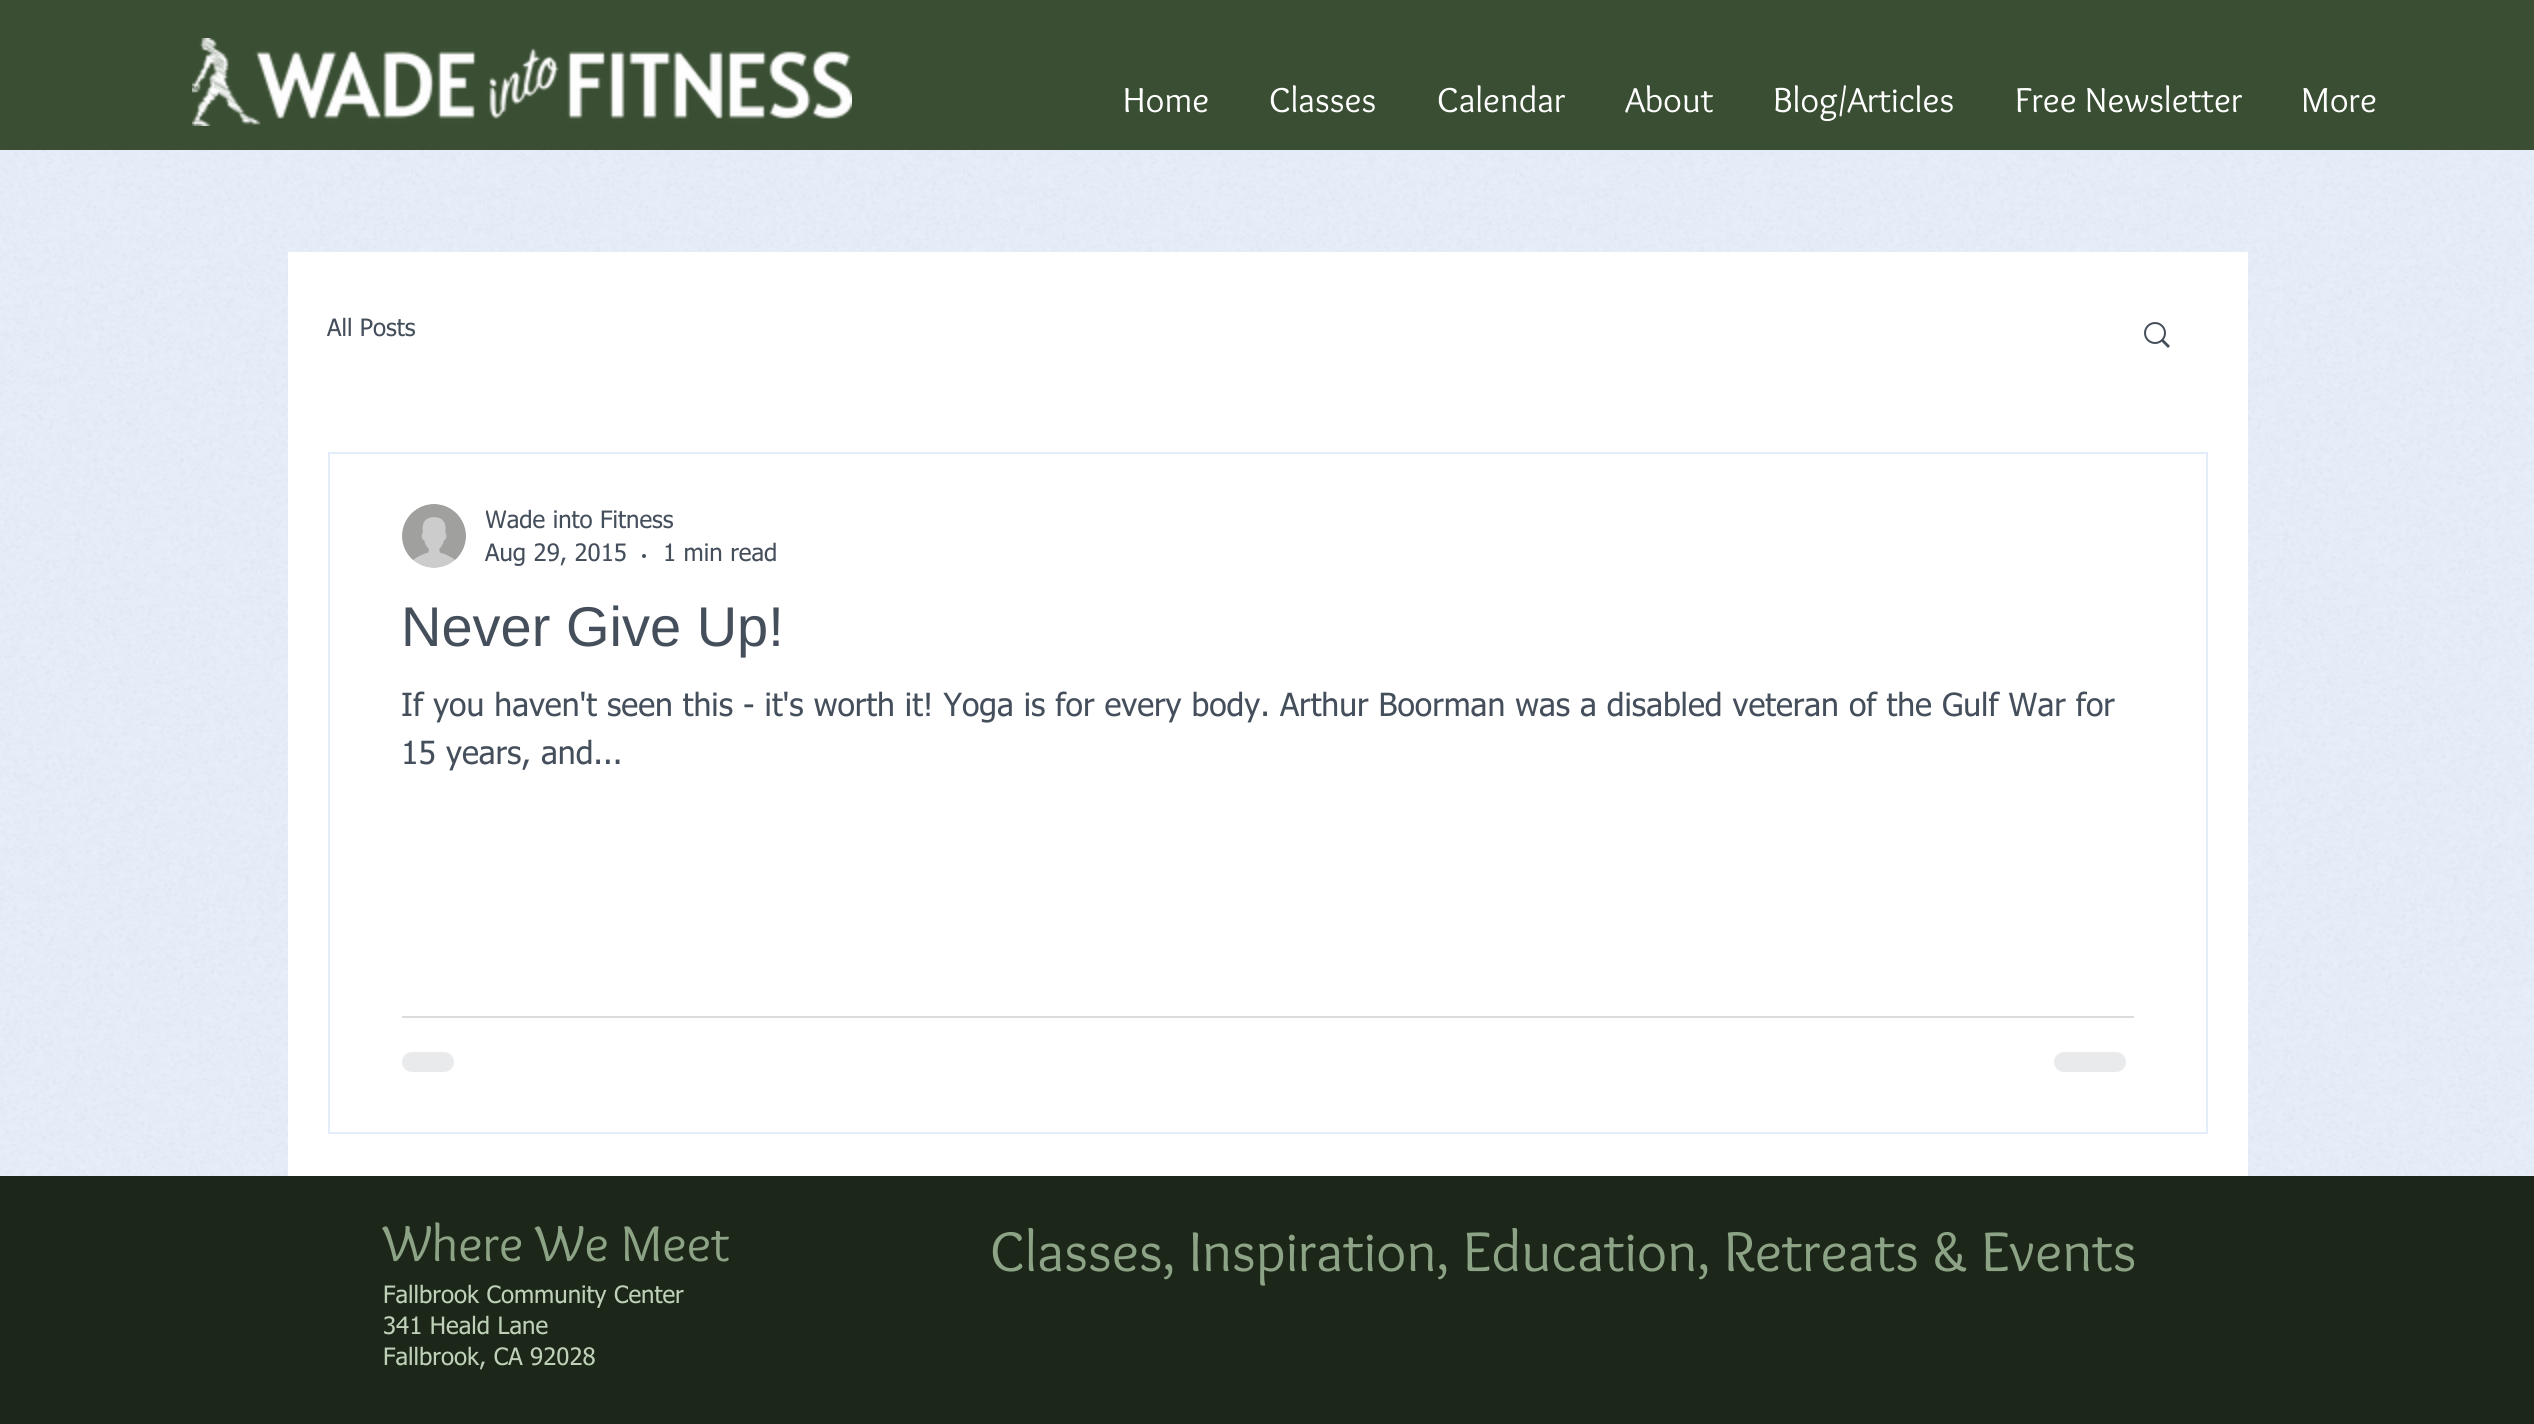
import math
import cairo

surface = cairo.ImageSurface(cairo.Format.RGB24, 2534, 1424)
ctx = cairo.Context(surface)
options = cairo.FontOptions()
options.set_hint_metrics(cairo.HintMetrics.OFF)
options.set_hint_style(cairo.HintStyle.NONE)
ctx.set_font_options(options)
ctx.set_miter_limit(4)


def ink(r, g, b):
    ctx.set_source_rgb(r / 255, g / 255, b / 255)


def write(x, y, s, family, size, color, bold=False, italic=False):
    ctx.select_font_face(family, cairo.FontSlant.ITALIC if italic else cairo.FontSlant.NORMAL, cairo.FontWeight.BOLD if bold else cairo.FontWeight.NORMAL)
    ctx.set_font_size(size)
    ink(*color)
    ctx.move_to(x, y)
    ctx.show_text(s)


def block(x, y, w, h, *color):
    ink(*color)
    ctx.rectangle(x, y, w, h)
    ctx.fill()


def round_path(x, y, w, h, r):
    ctx.new_sub_path()
    for i, (u, v) in enumerate([(x + w - r, y + h - r), (x + r, y + h - r), (x + r, y + r), (x + w - r, y + r)]):
        ctx.arc(u, v, r, i * math.pi / 2, (i + 1) * math.pi / 2)
    ctx.close_path()


def paste(path, x, y, w, h):
    ctx.save()
    ctx.set_source_surface(cairo.ImageSurface.create_from_png(path), x, y)
    ctx.rectangle(x, y, w, h)
    ctx.fill()
    ctx.restore()


s1 = dict(family="Overlock", size=36, color=(255, 255, 255))
s2 = dict(family="tahoma", size=24, color=(69, 79, 92))
s3 = dict(family="Liberation Sans", size=56, color=(69, 79, 92))
s4 = dict(family="tahoma", size=32, color=(69, 79, 92))
s5 = dict(family="Overlock", size=52, color=(141, 163, 134))
s6 = dict(family="tahoma", size=24, color=(190, 209, 184))
s7 = dict(family="Overlock", size=58, color=(141, 163, 134))

ink(227, 237, 249)
ctx.paint()
block(0, 0, 2534, 150, 57, 78, 50)
paste("pic1.png", 192, 38, 660, 88)
write(1123, 112, "Home", **s1)
write(1269, 112, "Classes", **s1)
write(1437, 112, "Calendar", **s1)
write(1625, 112, "About", **s1)
write(1773, 112, "Blog/Articles", **s1)
write(2015, 112, "Free Newsletter", **s1)
write(2301, 112, "More", **s1)
paste("pic4.png", 0, 150, 2534, 1026)
block(1070, 150, 1338, 2, 227, 237, 249)
block(288, 252, 1960, 924, 255, 255, 255)
write(327, 336, "All Posts", **s2)
paste("pic2.png", 2144, 322, 26, 26)
ctx.rectangle(329, 453, 1878, 680)
ink(227, 237, 249)
ctx.stroke()
paste("pic3.png", 402, 504, 64, 64)
ctx.save()
ctx.rectangle(486, 508, 188, 28)
ctx.clip()
write(485, 528, "Wade into Fitness", **s2)
ctx.restore()
write(485, 561, "Aug 29, 2015", **s2)
ctx.new_path()
ctx.arc(644, 556, 2, 0, 2 * math.pi)
ctx.fill()
write(663, 561, "1 min read", **s2)
write(401, 646, "Never Give Up!", **s3)
write(401, 716, "If you haven't seen this - it's worth it! Yoga is for every body. Arthur Boorman was a disabled veteran of the Gulf War for", **s4)
write(401, 764, "15 years, and...", **s4)
block(402, 1016, 1732, 2, 218, 220, 222)
ink(233, 234, 235)
round_path(402, 1052, 52, 20, 10)
ctx.fill()
round_path(2054, 1052, 72, 20, 10)
ctx.fill()
block(0, 1176, 2534, 248, 28, 39, 25)
write(383, 1261, "Where We Meet", **s5)
write(383, 1303, "Fallbrook Community Center", **s6)
write(383, 1334, "341 Heald Lane", **s6)
write(383, 1365, "Fallbrook, CA 92028", **s6)
write(990, 1271, "Classes, Inspiration, Education, Retreats & Events", **s7)
surface.write_to_png("screenshot.png")
